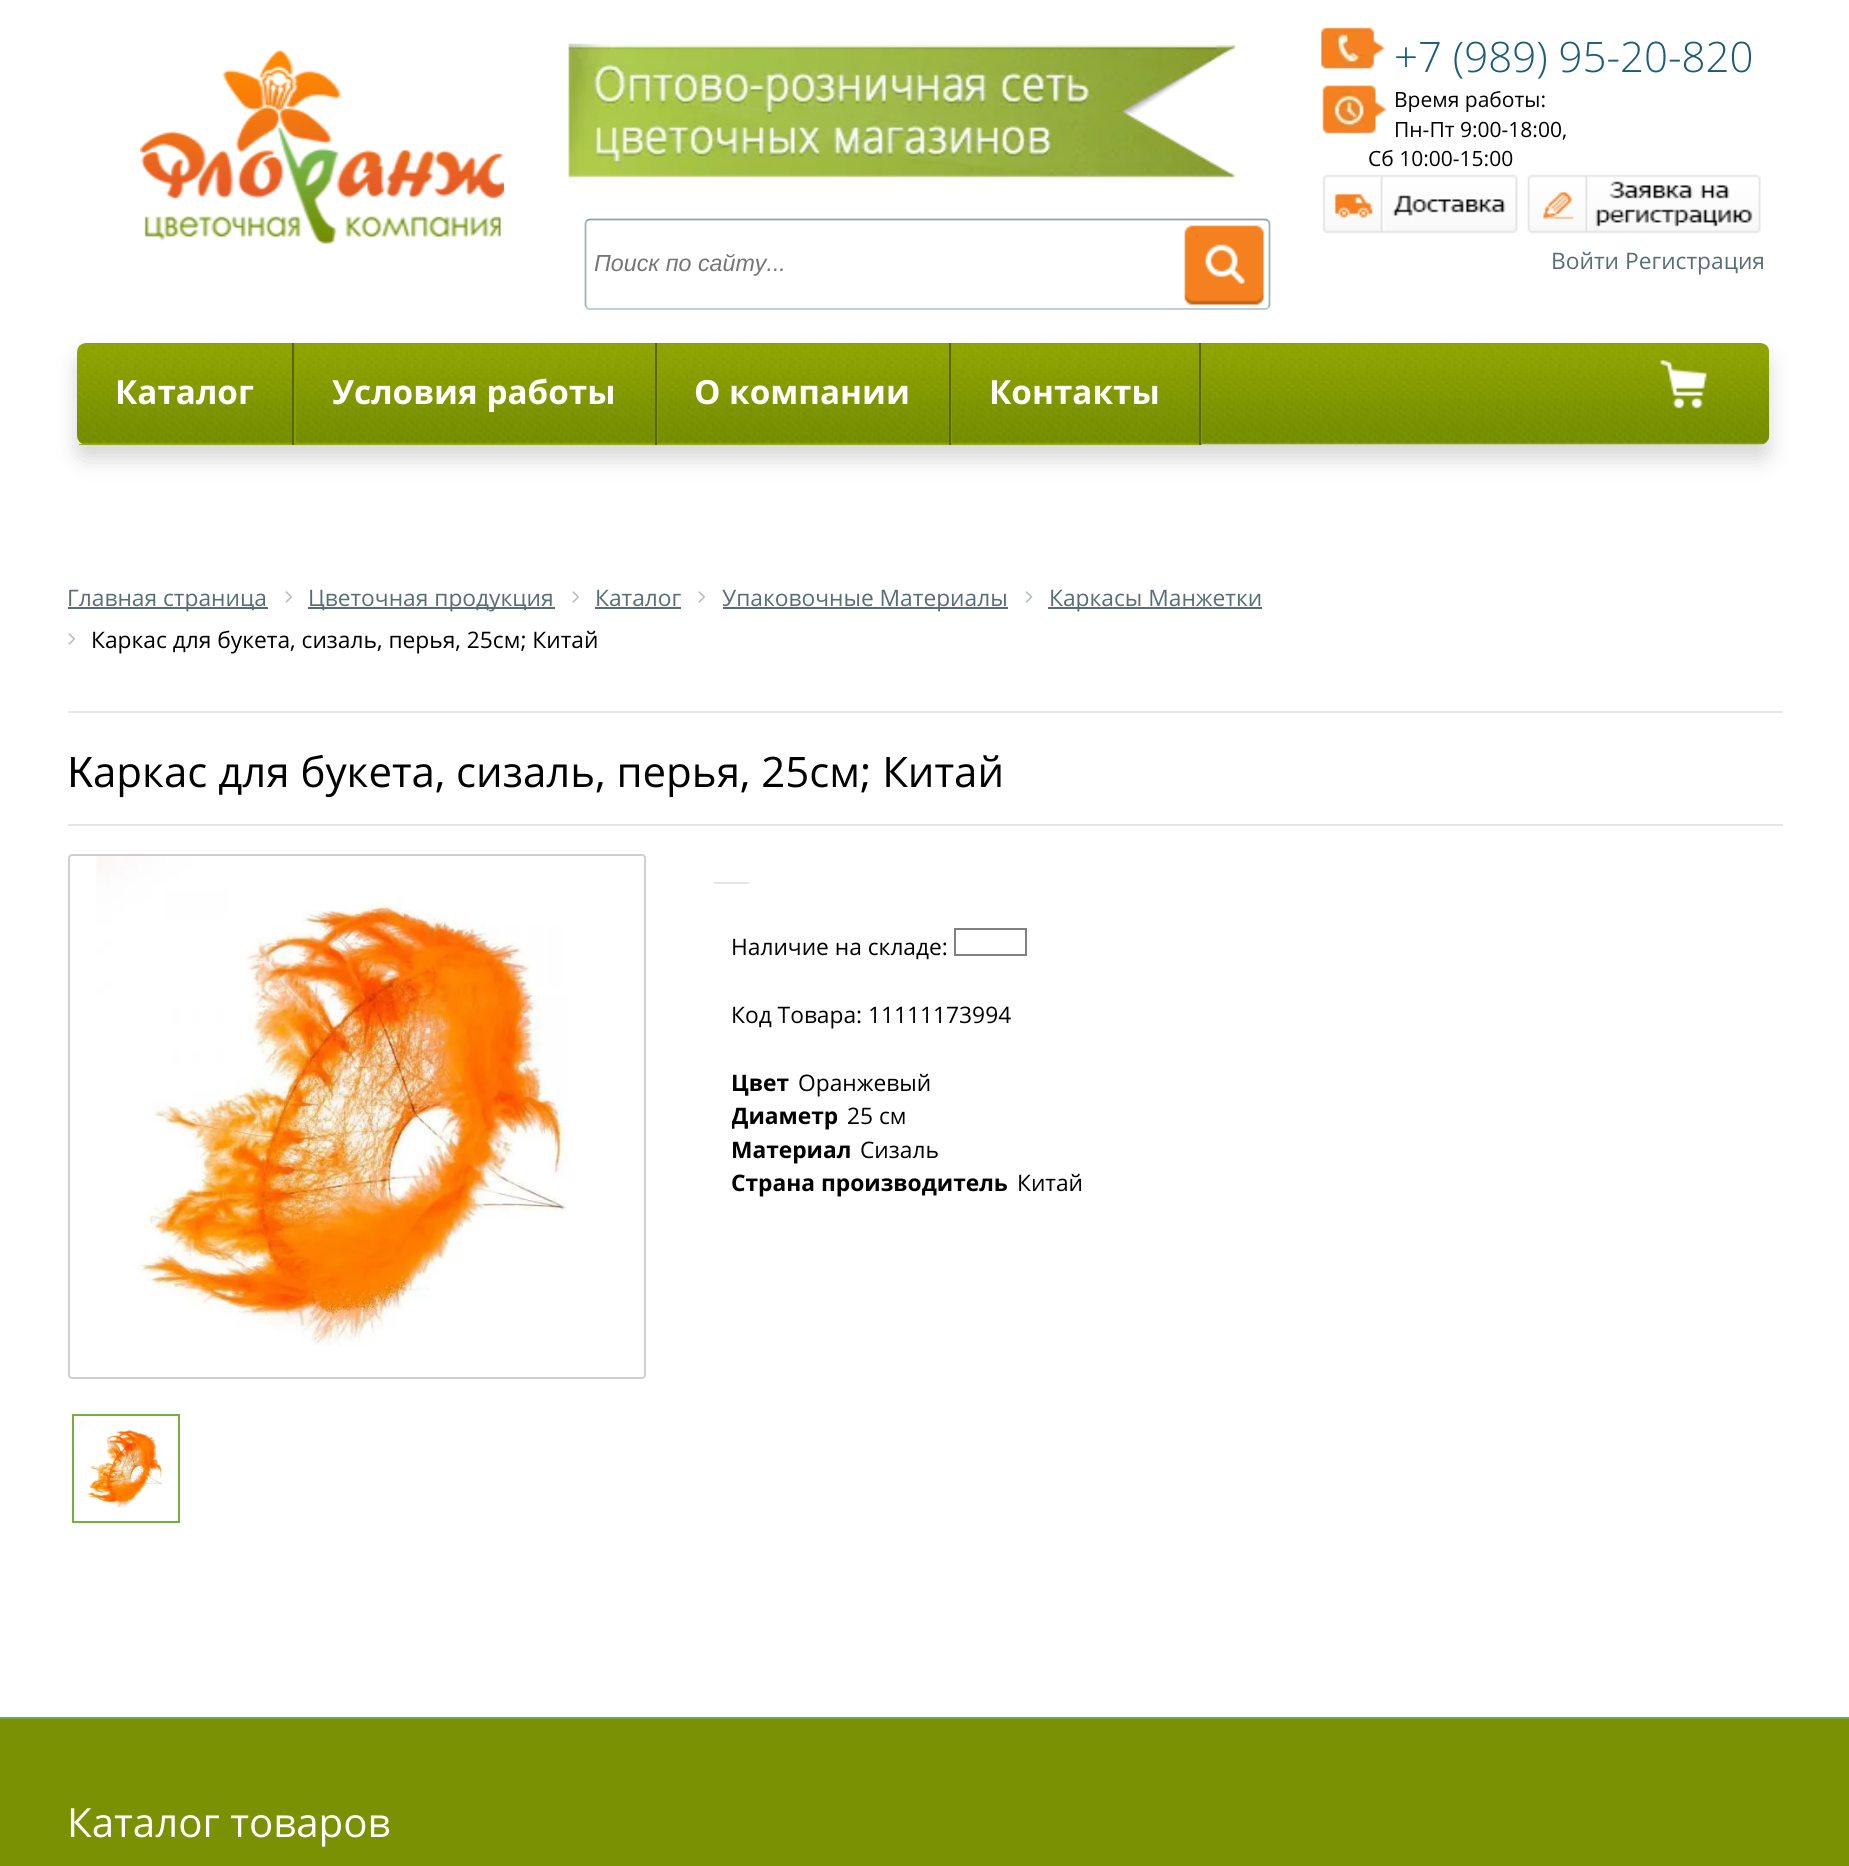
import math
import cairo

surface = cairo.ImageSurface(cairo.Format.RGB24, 1849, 1866)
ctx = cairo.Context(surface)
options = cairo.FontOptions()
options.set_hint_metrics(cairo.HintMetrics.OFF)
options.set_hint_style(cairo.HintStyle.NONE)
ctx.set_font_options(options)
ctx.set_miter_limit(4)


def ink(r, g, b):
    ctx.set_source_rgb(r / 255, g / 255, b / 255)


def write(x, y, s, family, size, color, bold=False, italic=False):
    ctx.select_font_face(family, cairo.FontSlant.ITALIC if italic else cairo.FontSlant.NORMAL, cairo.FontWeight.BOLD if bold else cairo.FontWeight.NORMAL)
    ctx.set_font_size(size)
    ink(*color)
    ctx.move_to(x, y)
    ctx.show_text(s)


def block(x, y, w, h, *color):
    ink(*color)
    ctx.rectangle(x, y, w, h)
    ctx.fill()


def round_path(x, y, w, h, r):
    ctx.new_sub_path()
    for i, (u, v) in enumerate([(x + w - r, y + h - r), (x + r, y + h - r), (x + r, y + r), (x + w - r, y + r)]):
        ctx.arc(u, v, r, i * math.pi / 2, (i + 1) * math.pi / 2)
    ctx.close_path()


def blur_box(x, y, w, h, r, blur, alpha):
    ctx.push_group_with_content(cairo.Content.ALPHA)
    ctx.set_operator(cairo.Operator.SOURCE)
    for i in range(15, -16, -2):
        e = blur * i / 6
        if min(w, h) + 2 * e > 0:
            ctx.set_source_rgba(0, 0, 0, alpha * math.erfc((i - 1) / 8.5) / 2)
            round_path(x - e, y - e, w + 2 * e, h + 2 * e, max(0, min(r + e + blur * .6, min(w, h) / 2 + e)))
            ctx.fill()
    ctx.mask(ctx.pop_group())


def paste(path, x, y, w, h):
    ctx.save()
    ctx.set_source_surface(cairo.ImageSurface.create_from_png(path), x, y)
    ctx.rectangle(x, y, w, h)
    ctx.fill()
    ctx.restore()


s1 = dict(family="Open Sans Light", size=42, color=(27, 92, 121))
s2 = dict(family="Open Sans", size=21, color=(0, 0, 0))
s3 = dict(family="Open Sans", size=22.75, color=(87, 110, 117))
s4 = dict(family="Liberation Sans", size=23.25, color=(117, 117, 117), italic=True)
s5 = dict(family="Open Sans", size=33.25, color=(255, 255, 255), bold=True)
s6 = dict(family="Open Sans", size=22.75, color=(0, 0, 0))
s7 = dict(family="Noto Sans", size=42, color=(0, 0, 0))
s8 = dict(family="Open Sans", size=42, color=(0, 0, 0))
s9 = dict(family="Open Sans", size=22.75, color=(0, 0, 0), bold=True)
s10 = dict(family="Open Sans", size=40.25, color=(255, 255, 255))

ink(255, 255, 255)
ctx.paint()
paste("pic1.png", 140, 50, 364, 194)
paste("pic2.png", 1320, 27, 65, 42)
write(1394, 72, "+7 (989) 95-20-820", **s1)
paste("pic3.png", 1322, 85, 65, 49)
write(1394, 107, "Время работы:", **s2)
write(1394, 137, "Пн-Пт 9:00-18:00,", **s2)
write(1368, 166, "Сб 10:00-15:00", **s2)
paste("pic4.png", 1322, 174, 196, 60)
paste("pic5.png", 1527, 174, 234, 60)
write(1551, 269, "Войти", **s3)
write(1625, 269, "Регистрация", **s3)
paste("pic6.png", 568, 43, 668, 141)
ctx.new_path()
ctx.move_to(586.5, 221)
ctx.curve_to(587.5, 220, 588.5, 219.5, 590, 219.5)
ctx.line_to(1265, 219.5)
ctx.curve_to(1266.5, 219.5, 1267.5, 220, 1268.5, 221)
ink(140, 163, 174)
ctx.set_line_width(1.8)
ctx.stroke()
ctx.new_path()
ctx.move_to(1268.5, 221)
ctx.line_to(1269.5, 223.5)
ctx.line_to(1269.5, 305)
ctx.line_to(1268.5, 307.5)
ink(160, 180, 190)
ctx.stroke()
ctx.new_path()
ctx.move_to(1268.5, 307.5)
ctx.curve_to(1267.5, 308.5, 1266.5, 309, 1265, 309)
ctx.line_to(590, 309)
ctx.curve_to(588.5, 309, 587.5, 308.5, 586.5, 307.5)
ink(182, 200, 209)
ctx.stroke()
ctx.new_path()
ctx.move_to(586.5, 307.5)
ctx.line_to(585.5, 305)
ctx.line_to(585.5, 223.5)
ctx.line_to(586.5, 221)
ink(160, 180, 190)
ctx.stroke()
write(594, 271, "Поиск по сайту...", **s4)
paste("pic7.png", 1184, 225, 80, 80)
ink(122, 122, 122)
blur_box(77, 357, 1692, 102, 9, 10.5, 0.3)
paste("pic8.png", 77, 343, 1693, 102)
ctx.set_source_rgba(0.545, 0.627, 0.016, 0.8)
ctx.new_path()
ctx.move_to(79, 444)
ctx.line_to(79, 445)
ctx.line_to(296, 445)
ctx.line_to(296, 343)
ctx.line_to(294, 343)
ctx.line_to(294, 444)
ctx.close_path()
ctx.fill()
block(292, 343, 2, 102, 86, 103, 0)
write(115, 404, "Каталог", **s5)
ctx.set_source_rgba(0.545, 0.627, 0.016, 0.8)
ctx.new_path()
ctx.move_to(296, 444)
ctx.line_to(296, 445)
ctx.line_to(658, 445)
ctx.line_to(658, 343)
ctx.line_to(656, 343)
ctx.line_to(656, 444)
ctx.close_path()
ctx.fill()
block(655, 343, 2, 102, 86, 103, 0)
write(332, 404, "Условия работы", **s5)
ctx.set_source_rgba(0.545, 0.627, 0.016, 0.8)
ctx.new_path()
ctx.move_to(658, 444)
ctx.line_to(658, 445)
ctx.line_to(952, 445)
ctx.line_to(952, 343)
ctx.line_to(950, 343)
ctx.line_to(950, 444)
ctx.close_path()
ctx.fill()
block(949, 343, 2, 102, 86, 103, 0)
write(694, 404, "О компании", **s5)
ctx.set_source_rgba(0.545, 0.627, 0.016, 0.8)
ctx.new_path()
ctx.move_to(952, 444)
ctx.line_to(952, 445)
ctx.line_to(1202, 445)
ctx.line_to(1202, 343)
ctx.line_to(1200, 343)
ctx.line_to(1200, 444)
ctx.close_path()
ctx.fill()
block(1199, 343, 2, 102, 86, 103, 0)
write(989, 404, "Контакты", **s5)
paste("pic9.png", 1660, 360, 47, 49)
block(68, 607, 200, 2, 87, 110, 117)
write(67, 606, "Главная страница", **s3)
paste("pic10.png", 285, 591, 7, 12)
block(308, 607, 247, 2, 87, 110, 117)
write(308, 606, "Цветочная продукция", **s3)
paste("pic10.png", 572, 591, 7, 12)
write(595, 606, "Каталог", **s3)
block(595, 607, 86, 2, 87, 110, 117)
paste("pic10.png", 698, 591, 7, 12)
block(723, 607, 285, 2, 87, 110, 117)
write(722, 606, "Упаковочные Материалы", **s3)
paste("pic11.png", 1025, 591, 8, 12)
block(1048, 607, 214, 2, 87, 110, 117)
write(1049, 606, "Каркасы Манжетки", **s3)
paste("pic10.png", 68, 633, 7, 12)
write(91, 648, "Каркас для букета, сизаль, перья, 25см; Китай", **s6)
block(68, 711, 1715, 2, 229, 229, 229)
block(68, 824, 1715, 2, 229, 229, 229)
write(67, 787, "К", **s7)
write(93, 787, "аркас для букета, сизаль, перья, 25см; Китай", **s8)
round_path(69, 855, 576, 523, 3)
ink(207, 207, 207)
ctx.set_line_width(2)
ctx.stroke()
paste("pic12.png", 96, 856, 473, 490)
ctx.rectangle(73, 1415, 106, 107)
ink(116, 175, 64)
ctx.stroke()
paste("pic13.png", 79, 1421, 84, 87)
block(714, 882, 35, 2, 230, 230, 230)
write(731, 955, "Наличие на складе:", **s6)
ctx.rectangle(955, 929, 71, 26)
ink(128, 128, 128)
ctx.stroke()
write(731, 1023, "Код Товара: 11111173994", **s6)
write(731, 1091, "Цвет", **s9)
write(798, 1091, "Оранжевый", **s6)
ctx.save()
ctx.rectangle(732, 1068, 976, 133)
ctx.clip()
write(731, 1124, "Диаметр", **s9)
ctx.restore()
write(847, 1124, "25 см", **s6)
write(731, 1158, "Материал", **s9)
write(860, 1158, "Сизаль", **s6)
write(731, 1191, "Страна производитель", **s9)
write(1017, 1191, "Китай", **s6)
block(0, 1719, 1849, 147, 121, 145, 2)
block(0, 1717, 1849, 2, 115, 167, 70)
write(67, 1837, "Каталог товаров", **s10)
surface.write_to_png("screenshot.png")
